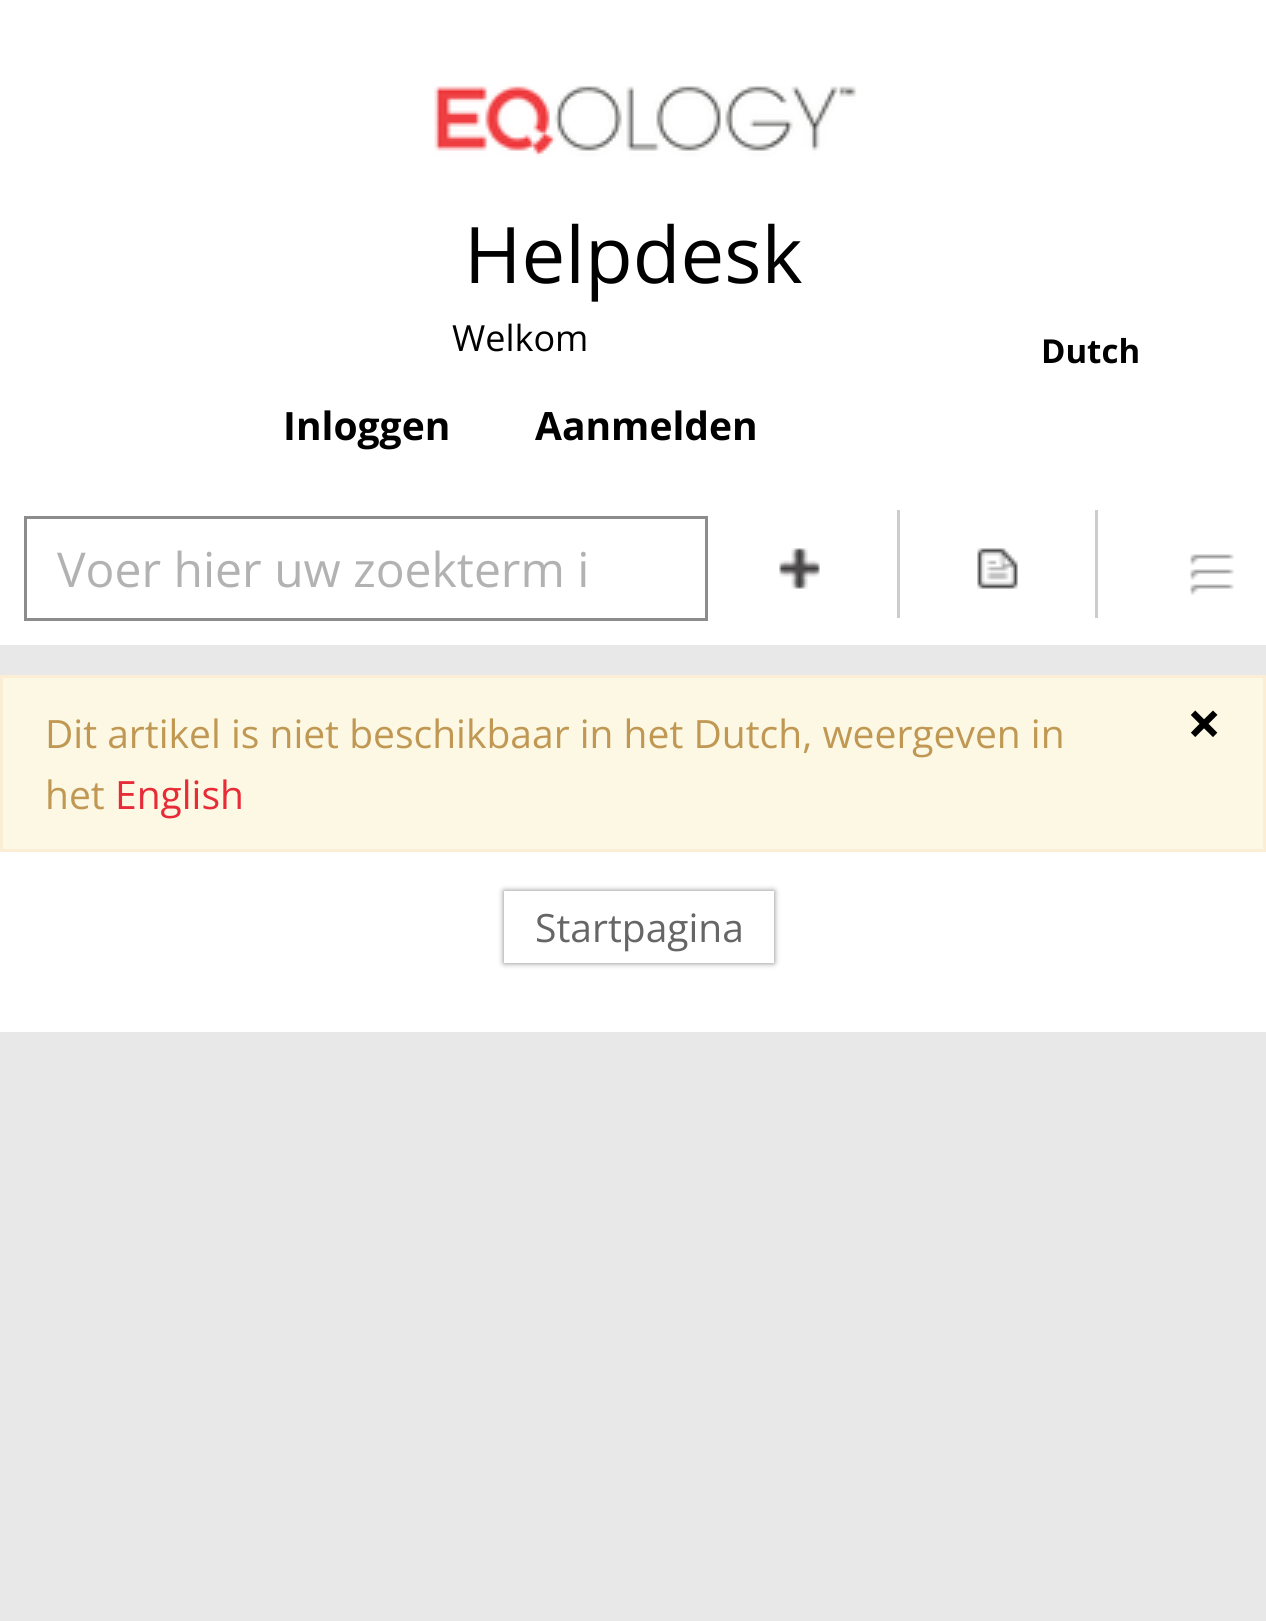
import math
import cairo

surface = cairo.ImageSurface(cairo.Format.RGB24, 1266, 1621)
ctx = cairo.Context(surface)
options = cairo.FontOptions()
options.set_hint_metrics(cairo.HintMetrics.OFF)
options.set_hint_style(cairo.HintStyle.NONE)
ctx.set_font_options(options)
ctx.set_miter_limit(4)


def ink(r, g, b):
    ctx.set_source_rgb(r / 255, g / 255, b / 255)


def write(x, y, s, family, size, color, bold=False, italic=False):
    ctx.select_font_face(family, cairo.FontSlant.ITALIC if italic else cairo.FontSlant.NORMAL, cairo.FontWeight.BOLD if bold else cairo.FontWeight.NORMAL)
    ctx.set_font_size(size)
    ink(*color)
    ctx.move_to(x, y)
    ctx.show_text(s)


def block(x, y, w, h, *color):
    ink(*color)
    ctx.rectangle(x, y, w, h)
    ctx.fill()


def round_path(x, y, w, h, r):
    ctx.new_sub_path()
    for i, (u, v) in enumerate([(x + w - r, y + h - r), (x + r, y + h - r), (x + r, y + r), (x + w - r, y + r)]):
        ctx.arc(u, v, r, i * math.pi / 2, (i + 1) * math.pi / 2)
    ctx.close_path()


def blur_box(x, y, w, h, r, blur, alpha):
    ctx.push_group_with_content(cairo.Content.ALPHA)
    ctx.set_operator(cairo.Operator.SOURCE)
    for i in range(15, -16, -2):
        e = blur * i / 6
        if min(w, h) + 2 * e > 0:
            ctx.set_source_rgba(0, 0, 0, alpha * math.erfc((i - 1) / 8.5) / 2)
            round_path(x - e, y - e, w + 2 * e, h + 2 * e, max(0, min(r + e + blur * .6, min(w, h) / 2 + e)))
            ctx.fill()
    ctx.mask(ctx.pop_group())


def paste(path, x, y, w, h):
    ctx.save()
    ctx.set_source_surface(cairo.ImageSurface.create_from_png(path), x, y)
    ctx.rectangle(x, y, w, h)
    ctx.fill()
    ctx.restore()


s1 = dict(family="Open Sans", size=78, color=(0, 0, 0))
s2 = dict(family="Open Sans", size=36, color=(0, 0, 0))
s3 = dict(family="Open Sans", size=33, color=(0, 0, 0), bold=True)
s4 = dict(family="Open Sans", size=39, color=(0, 0, 0), bold=True)
s5 = dict(family="Open Sans", size=48, color=(178, 178, 178))
s6 = dict(family="Open Sans", size=39, color=(192, 152, 83))
s7 = dict(family="Open Sans", size=60, color=(0, 0, 0), bold=True)
s8 = dict(family="Open Sans", size=39, color=(231, 43, 55))
s9 = dict(family="Open Sans", size=39, color=(102, 102, 102))

ink(232, 232, 232)
ctx.paint()
block(0, 0, 1266, 645, 255, 255, 255)
paste("pic1.png", 434, 86, 423, 71)
write(464, 283, "Helpdesk", **s1)
write(452, 351, "Welkom", **s2)
write(1041, 363, "Dutch", **s3)
write(283, 440, "Inloggen", **s4)
write(535, 440, "Aanmelden", **s4)
ctx.rectangle(25.5, 517.5, 681, 102)
ink(140, 140, 140)
ctx.set_line_width(3)
ctx.stroke()
write(57, 587, "Voer hier uw zoekterm i", **s5)
block(897, 510, 3, 108, 204, 204, 204)
paste("pic2.png", 779, 548, 41, 41)
block(1095, 510, 3, 108, 204, 204, 204)
paste("pic3.png", 977, 548, 41, 41)
paste("pic4.png", 1190, 554, 44, 41)
ink(252, 248, 227)
ctx.rectangle(1.5, 676.5, 1263, 174)
ctx.fill_preserve()
ink(251, 238, 213)
ctx.stroke()
write(45, 748, "Dit artikel is niet beschikbaar in het Dutch, weergeven in", **s6)
write(1187, 745, "×", **s7)
write(45, 809, "het", **s6)
write(115, 809, "English", **s8)
block(0, 852, 1266, 180, 255, 255, 255)
ctx.save()
ctx.set_fill_rule(cairo.FillRule.EVEN_ODD)
ctx.new_path()
ctx.move_to(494, 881)
ctx.line_to(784, 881)
ctx.line_to(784, 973)
ctx.line_to(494, 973)
ctx.close_path()
ctx.move_to(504, 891)
ctx.line_to(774, 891)
ctx.line_to(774, 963)
ctx.line_to(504, 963)
ctx.close_path()
ctx.clip()
ink(128, 128, 128)
blur_box(504, 891, 270, 72, 0, 3, 1)
ctx.restore()
write(535, 942, "Startpagina", **s9)
surface.write_to_png("screenshot.png")
